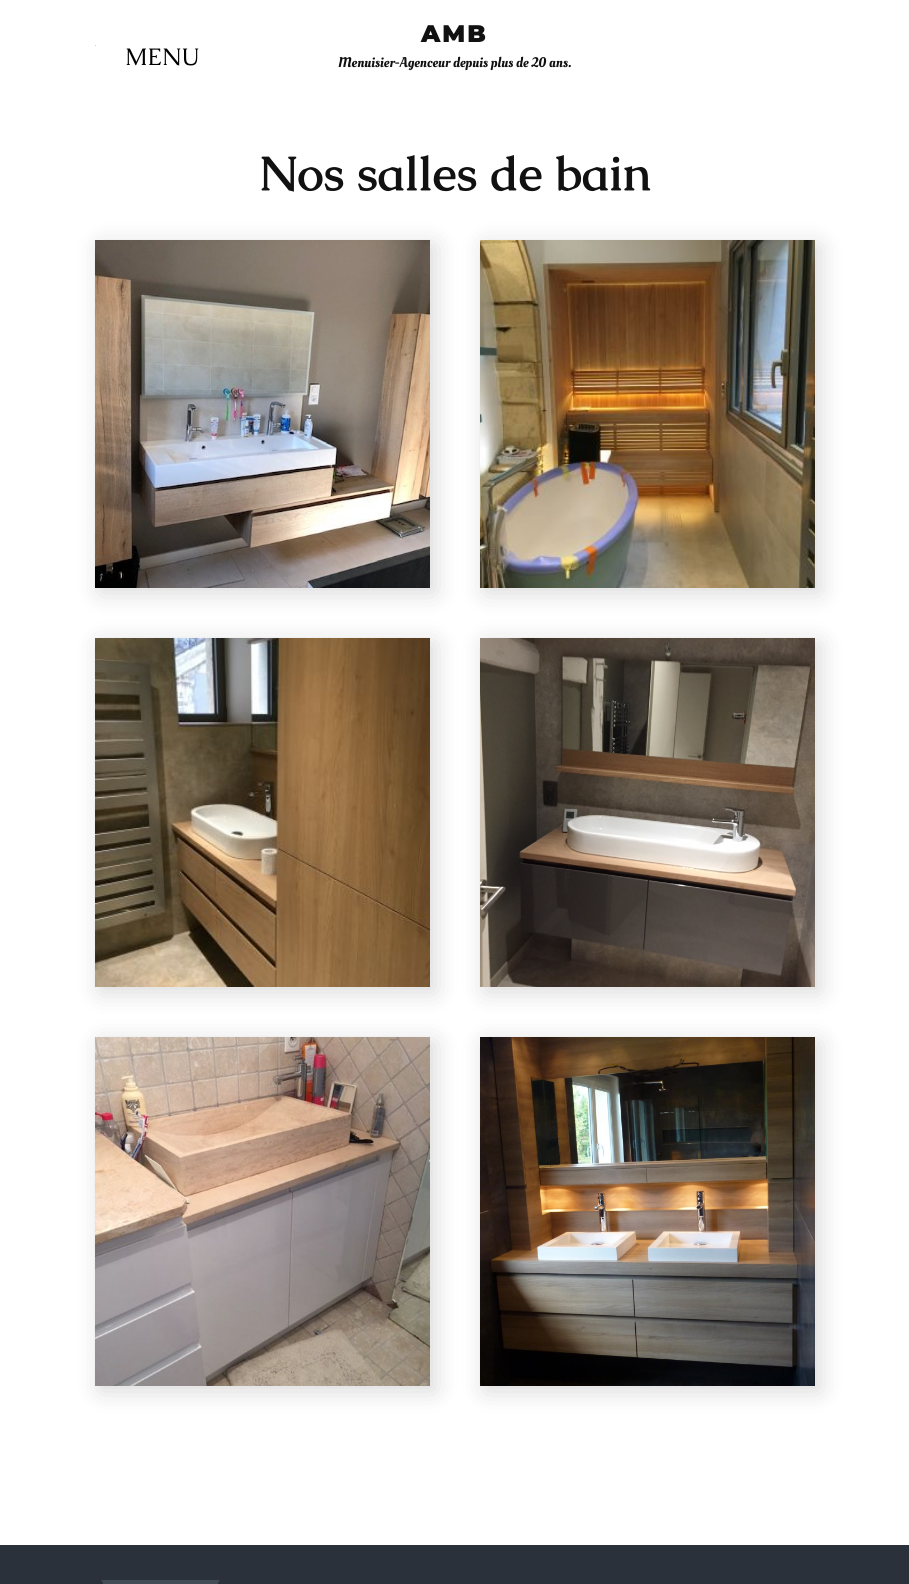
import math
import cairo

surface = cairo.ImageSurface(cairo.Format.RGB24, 909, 1584)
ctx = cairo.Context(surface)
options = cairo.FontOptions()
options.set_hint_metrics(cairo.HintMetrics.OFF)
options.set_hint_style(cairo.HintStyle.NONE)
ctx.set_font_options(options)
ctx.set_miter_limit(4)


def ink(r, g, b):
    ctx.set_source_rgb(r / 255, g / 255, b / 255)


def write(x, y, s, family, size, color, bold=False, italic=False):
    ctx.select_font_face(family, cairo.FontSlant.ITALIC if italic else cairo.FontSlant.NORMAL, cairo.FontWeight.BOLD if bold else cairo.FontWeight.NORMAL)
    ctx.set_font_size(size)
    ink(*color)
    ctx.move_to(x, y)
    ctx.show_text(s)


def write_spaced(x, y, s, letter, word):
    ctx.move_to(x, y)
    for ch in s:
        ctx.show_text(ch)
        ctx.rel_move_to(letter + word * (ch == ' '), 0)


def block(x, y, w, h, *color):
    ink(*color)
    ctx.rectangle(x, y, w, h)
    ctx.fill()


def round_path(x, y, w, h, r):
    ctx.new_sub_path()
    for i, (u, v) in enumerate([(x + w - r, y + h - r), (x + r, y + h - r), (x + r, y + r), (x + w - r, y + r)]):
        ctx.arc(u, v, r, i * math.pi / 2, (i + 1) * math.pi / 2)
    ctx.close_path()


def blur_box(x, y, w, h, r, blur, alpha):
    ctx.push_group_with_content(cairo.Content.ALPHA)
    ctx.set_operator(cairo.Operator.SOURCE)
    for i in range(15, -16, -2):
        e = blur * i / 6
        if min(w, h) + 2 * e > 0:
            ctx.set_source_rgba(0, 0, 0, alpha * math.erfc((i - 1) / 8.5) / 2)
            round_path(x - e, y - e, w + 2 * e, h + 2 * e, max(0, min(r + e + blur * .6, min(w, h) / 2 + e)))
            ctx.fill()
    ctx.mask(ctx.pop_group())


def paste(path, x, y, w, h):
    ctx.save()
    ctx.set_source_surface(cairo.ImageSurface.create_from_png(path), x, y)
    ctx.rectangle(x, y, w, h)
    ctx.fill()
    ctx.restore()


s1 = dict(family="Caudex", size=24, color=(0, 0, 0))
s2 = dict(family="Oleo Script", size=14, color=(17, 17, 17))
s3 = dict(family="Caudex", size=48, color=(17, 17, 17), bold=True)

ink(255, 255, 255)
ctx.paint()
ctx.select_font_face("Montserrat Black")
ctx.set_font_size(24)
ink(17, 17, 17)
write_spaced(421, 42, "AMB", 2, 0)
paste("pic1.png", 95, 45, 2, 1)
write(125, 65, "MENU", **s1)
write(338, 67, "Menuisier-Agenceur depuis plus de 20 ans.", **s2)
write(259, 190, "Nos salles de bain", **s3)
ink(0, 0, 0)
blur_box(100, 245, 335, 348, 0, 12.5, 0.15)
paste("pic2.png", 95, 240, 335, 348)
blur_box(485, 245, 335, 348, 0, 12.5, 0.15)
paste("pic3.png", 480, 240, 335, 348)
blur_box(100, 643, 335, 349, 0, 12.5, 0.15)
paste("pic4.png", 95, 638, 335, 349)
blur_box(485, 643, 335, 349, 0, 12.5, 0.15)
paste("pic5.png", 480, 638, 335, 349)
blur_box(100, 1042, 335, 349, 0, 12.5, 0.15)
paste("pic6.png", 95, 1037, 335, 349)
blur_box(485, 1042, 335, 349, 0, 12.5, 0.15)
paste("pic7.png", 480, 1037, 335, 349)
block(0, 1545, 909, 39, 43, 49, 58)
paste("pic8.png", 101, 1580, 119, 4)
surface.write_to_png("screenshot.png")
